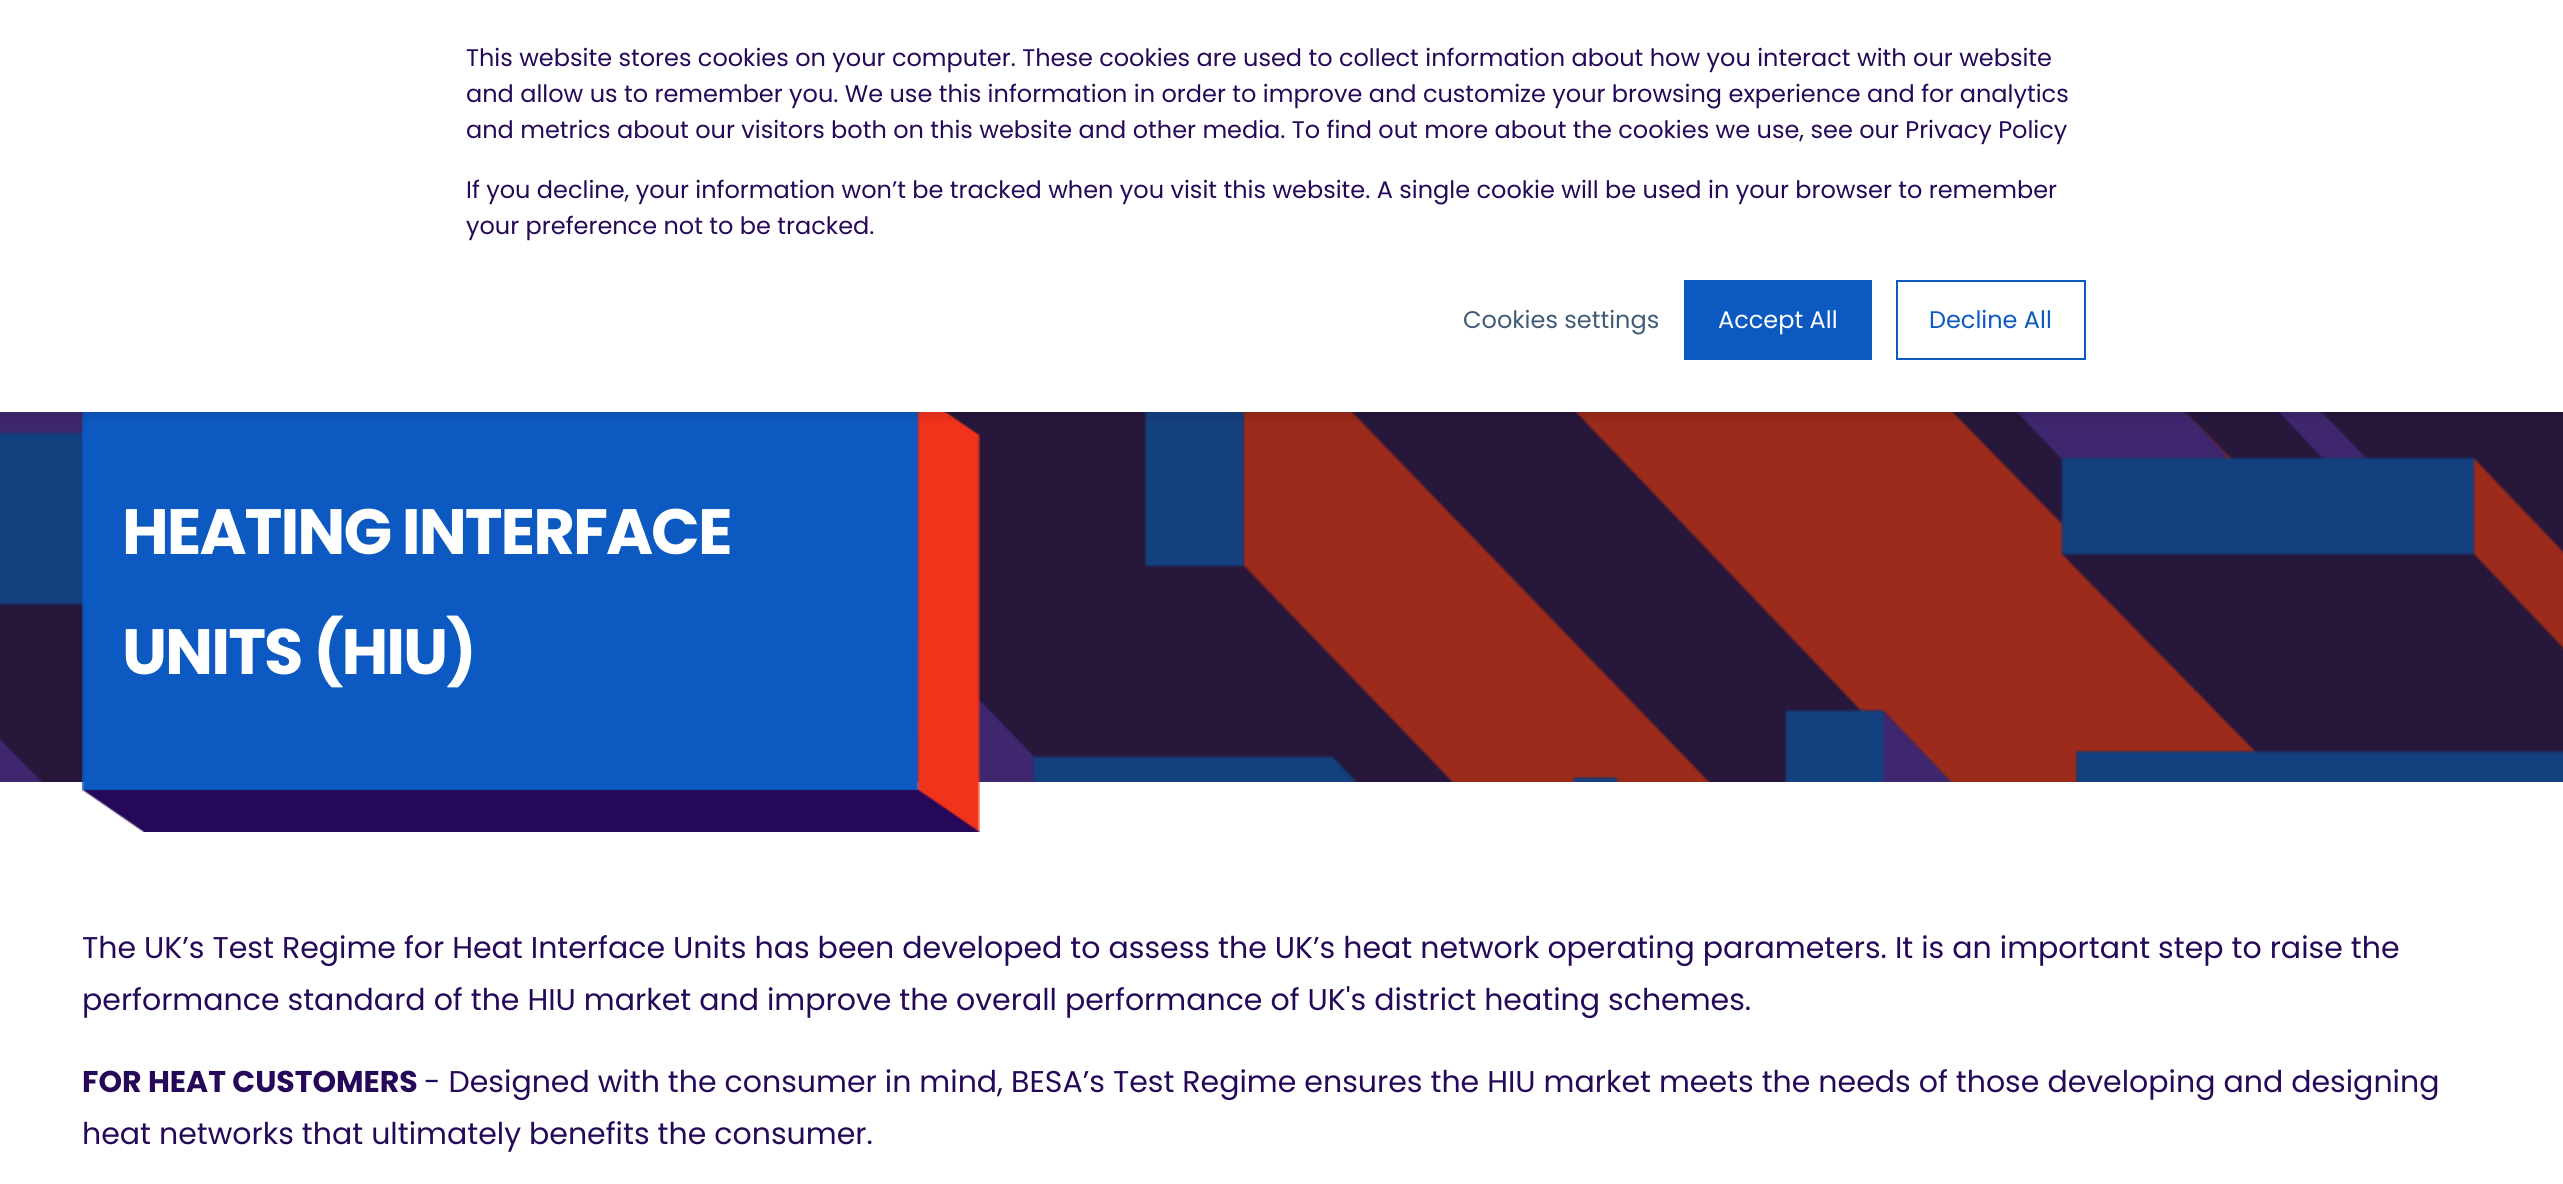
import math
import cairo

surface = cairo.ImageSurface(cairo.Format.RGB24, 2563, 1184)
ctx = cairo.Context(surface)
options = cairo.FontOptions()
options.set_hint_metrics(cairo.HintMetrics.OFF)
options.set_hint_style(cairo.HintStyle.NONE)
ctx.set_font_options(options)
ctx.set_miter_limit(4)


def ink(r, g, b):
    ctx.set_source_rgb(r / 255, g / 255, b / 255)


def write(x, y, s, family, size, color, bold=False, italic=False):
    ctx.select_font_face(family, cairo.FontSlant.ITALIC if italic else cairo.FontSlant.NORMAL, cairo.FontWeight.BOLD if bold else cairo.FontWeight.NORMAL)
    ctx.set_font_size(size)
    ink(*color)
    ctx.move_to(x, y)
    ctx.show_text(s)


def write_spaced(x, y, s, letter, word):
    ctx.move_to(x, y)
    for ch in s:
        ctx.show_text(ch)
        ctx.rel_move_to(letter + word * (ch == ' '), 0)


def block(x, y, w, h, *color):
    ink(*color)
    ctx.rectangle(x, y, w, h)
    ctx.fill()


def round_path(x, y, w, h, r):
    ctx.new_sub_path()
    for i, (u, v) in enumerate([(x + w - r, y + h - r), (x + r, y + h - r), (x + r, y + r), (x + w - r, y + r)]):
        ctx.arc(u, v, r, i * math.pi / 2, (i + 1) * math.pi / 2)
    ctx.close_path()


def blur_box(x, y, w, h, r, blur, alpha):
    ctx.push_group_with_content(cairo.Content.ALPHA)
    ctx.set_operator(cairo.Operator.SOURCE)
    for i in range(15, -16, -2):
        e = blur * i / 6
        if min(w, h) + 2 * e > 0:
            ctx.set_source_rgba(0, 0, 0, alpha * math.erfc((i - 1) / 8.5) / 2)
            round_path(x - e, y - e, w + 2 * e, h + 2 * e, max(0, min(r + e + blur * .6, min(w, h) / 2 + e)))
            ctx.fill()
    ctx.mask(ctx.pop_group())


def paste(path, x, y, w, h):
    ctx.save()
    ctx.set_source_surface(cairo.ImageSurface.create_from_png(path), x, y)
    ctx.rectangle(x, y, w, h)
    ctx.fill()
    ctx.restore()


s1 = dict(family="Poppins", size=24, color=(38, 8, 89))
s2 = dict(family="Poppins", size=24, color=(66, 91, 118))
s3 = dict(family="Poppins", size=24, color=(255, 255, 255))
s4 = dict(family="Poppins", size=24, color=(13, 89, 194))
s5 = dict(family="Poppins", size=30, color=(38, 8, 89))
s6 = dict(family="Poppins", size=30, color=(38, 8, 89), bold=True)

ink(255, 255, 255)
ctx.paint()
paste("pic1.png", 0, 412, 2563, 370)
paste("pic2.png", 82, 412, 898, 420)
ink(0, 0, 0)
blur_box(-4, 6, 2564, 412, 0, 5, 0.1)
block(0, 0, 2563, 412, 255, 255, 255)
write(466, 66, "This website stores cookies on your computer. These cookies are used to collect information about how you interact with our website", **s1)
write(466, 102, "and allow us to remember you. We use this information in order to improve and customize your browsing experience and for analytics", **s1)
write(466, 138, "and metrics about our visitors both on this website and other media. To find out more about the cookies we use, see our Privacy Policy", **s1)
write(466, 198, "If you decline, your information won’t be tracked when you visit this website. A single cookie will be used in your browser to remember", **s1)
write(466, 234, "your preference not to be tracked.", **s1)
write(1463, 328, "Cookies settings", **s2)
block(1684, 280, 188, 80, 13, 89, 194)
write(1718, 328, "Accept All", **s3)
ctx.rectangle(1897, 281, 188, 78)
ink(13, 89, 194)
ctx.stroke()
write(1929, 328, "Decline All", **s4)
ctx.select_font_face("Poppins", cairo.FontSlant.NORMAL, cairo.FontWeight.BOLD)
ctx.set_font_size(64)
ink(255, 255, 255)
write_spaced(122, 554, "HEATING INTERFACE", -2, 0)
write_spaced(122, 674, "UNITS (HIU)", -2, 0)
write(82, 958, "The UK’s Test Regime for Heat Interface Units has been developed to assess the UK’s heat network operating parameters. It is an important step to raise the", **s5)
write(82, 1010, "performance standard of the HIU market and improve the overall performance of UK's district heating schemes.", **s5)
write(82, 1092, "FOR HEAT CUSTOMERS", **s6)
write(424, 1092, "- Designed with the consumer in mind, BESA’s Test Regime ensures the HIU market meets the needs of those developing and designing", **s5)
write(82, 1144, "heat networks that ultimately benefits the consumer.", **s5)
surface.write_to_png("screenshot.png")
